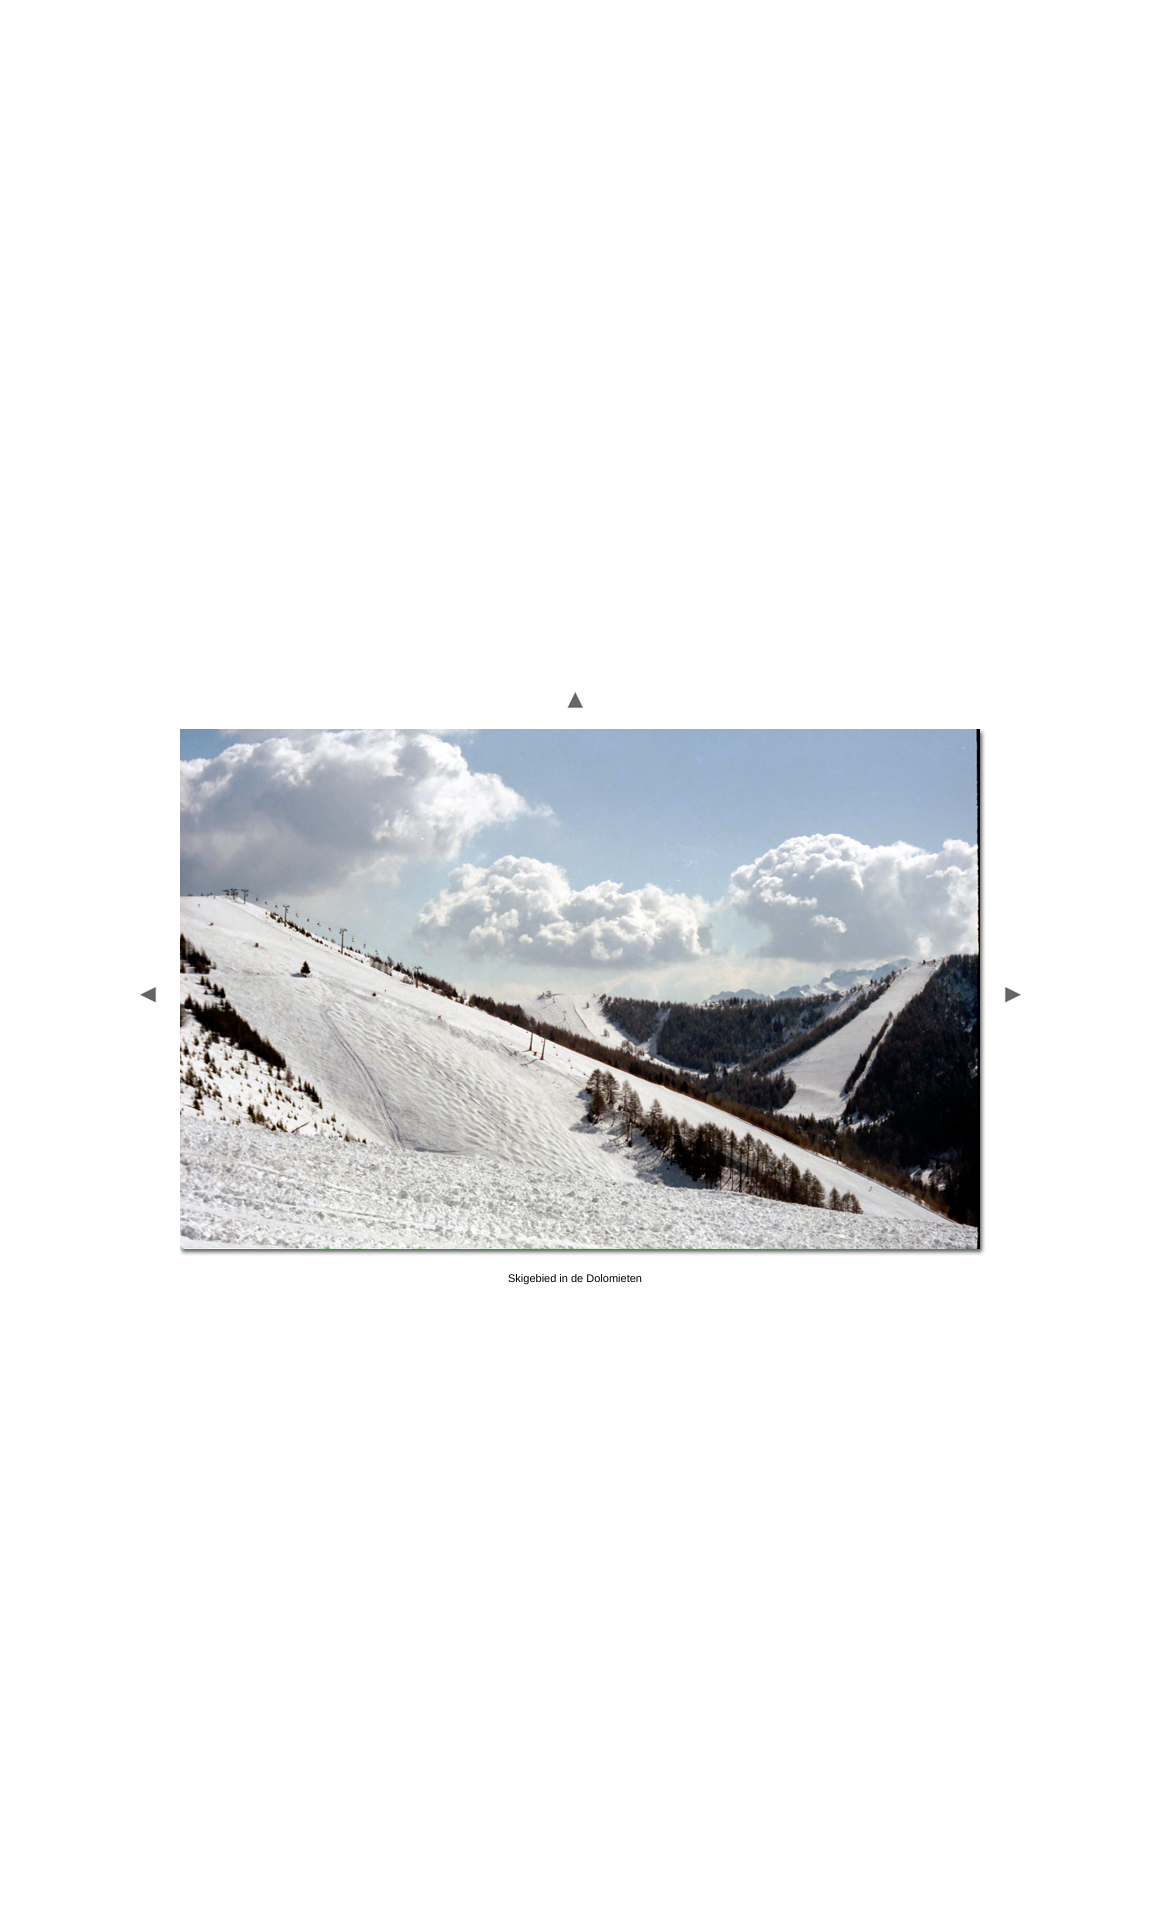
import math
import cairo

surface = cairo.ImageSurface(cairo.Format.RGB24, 1150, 1930)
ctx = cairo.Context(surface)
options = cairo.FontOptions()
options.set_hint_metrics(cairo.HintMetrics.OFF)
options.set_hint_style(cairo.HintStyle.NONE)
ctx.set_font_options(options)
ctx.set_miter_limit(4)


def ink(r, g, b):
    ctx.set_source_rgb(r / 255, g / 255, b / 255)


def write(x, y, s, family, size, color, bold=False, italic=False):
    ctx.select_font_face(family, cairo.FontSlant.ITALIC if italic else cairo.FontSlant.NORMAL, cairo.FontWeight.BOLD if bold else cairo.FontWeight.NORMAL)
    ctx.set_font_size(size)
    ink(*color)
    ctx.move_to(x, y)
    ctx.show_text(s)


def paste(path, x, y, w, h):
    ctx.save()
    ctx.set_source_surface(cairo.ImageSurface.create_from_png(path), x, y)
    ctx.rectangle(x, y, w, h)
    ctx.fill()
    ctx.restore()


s1 = dict(family="Liberation Sans", size=11, color=(0, 0, 0))

ink(255, 255, 255)
ctx.paint()
paste("pic1.png", 567, 691, 16, 18)
paste("pic2.png", 139, 987, 18, 16)
paste("pic3.png", 180, 729, 800, 520)
paste("pic4.png", 980, 736, 6, 513)
paste("pic5.png", 980, 729, 6, 7)
paste("pic6.png", 186, 1249, 794, 7)
paste("pic7.png", 180, 1249, 6, 7)
paste("pic8.png", 980, 1249, 6, 7)
paste("pic9.png", 1004, 987, 18, 16)
write(508, 1282, "Skigebied in de Dolomieten", **s1)
surface.write_to_png("screenshot.png")
